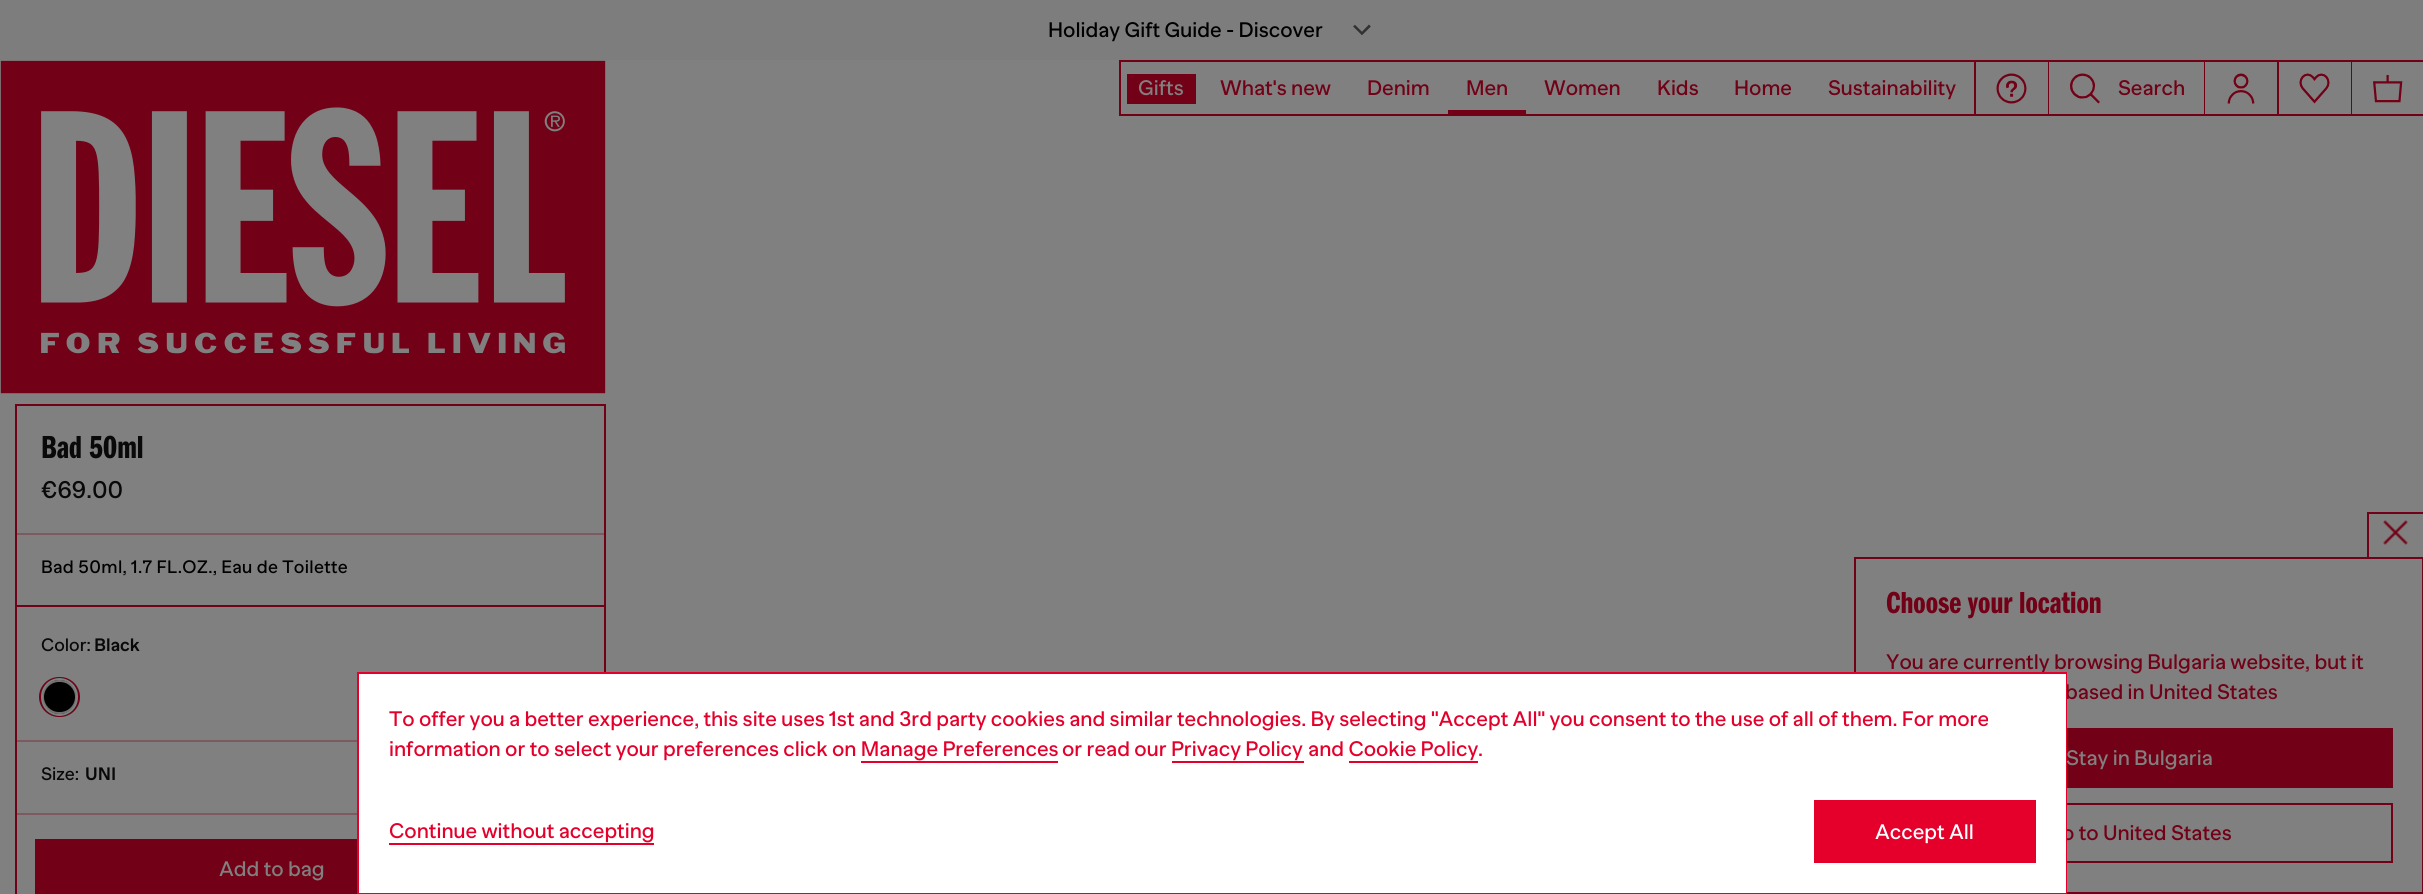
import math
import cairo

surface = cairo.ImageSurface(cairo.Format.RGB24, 2423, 894)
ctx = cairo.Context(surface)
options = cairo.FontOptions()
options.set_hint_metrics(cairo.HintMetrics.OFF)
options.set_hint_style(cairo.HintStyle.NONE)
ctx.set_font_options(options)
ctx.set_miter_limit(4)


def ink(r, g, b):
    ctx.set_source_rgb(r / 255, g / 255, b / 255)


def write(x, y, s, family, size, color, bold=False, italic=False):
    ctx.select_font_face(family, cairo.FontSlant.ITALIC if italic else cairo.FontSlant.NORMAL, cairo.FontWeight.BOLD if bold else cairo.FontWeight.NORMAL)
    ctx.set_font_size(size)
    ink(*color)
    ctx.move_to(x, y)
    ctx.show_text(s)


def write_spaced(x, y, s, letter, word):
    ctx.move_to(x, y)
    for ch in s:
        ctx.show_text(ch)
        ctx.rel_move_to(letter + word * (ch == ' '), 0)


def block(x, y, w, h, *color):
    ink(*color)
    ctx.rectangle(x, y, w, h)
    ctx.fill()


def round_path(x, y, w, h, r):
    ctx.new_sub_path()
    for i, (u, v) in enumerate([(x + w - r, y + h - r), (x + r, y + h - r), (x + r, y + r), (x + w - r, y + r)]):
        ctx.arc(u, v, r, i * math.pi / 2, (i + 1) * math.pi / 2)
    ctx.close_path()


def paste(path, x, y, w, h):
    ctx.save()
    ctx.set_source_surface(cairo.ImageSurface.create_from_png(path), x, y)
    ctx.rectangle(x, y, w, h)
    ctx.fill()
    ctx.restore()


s1 = dict(family="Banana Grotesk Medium", size=21, color=(0, 0, 0))
s2 = dict(family="Banana Grotesk Medium", size=21, color=(128, 128, 128))
s3 = dict(family="Banana Grotesk Medium", size=21, color=(114, 0, 22))
s4 = dict(family="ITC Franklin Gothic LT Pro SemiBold", size=33, color=(9, 9, 9))
s5 = dict(family="Banana Grotesk Medium", size=24, color=(9, 9, 9))
s6 = dict(family="Banana Grotesk Medium", size=18, color=(9, 9, 9))
s7 = dict(family="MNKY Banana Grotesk", size=18, color=(9, 9, 9), bold=True)
s8 = dict(family="Banana Grotesk Medium", size=21, color=(228, 0, 43))
s9 = dict(family="Banana Grotesk Medium", size=21, color=(255, 255, 255))
s10 = dict(family="ITC Franklin Gothic LT Pro SemiBold", size=31.5, color=(114, 0, 22))

ink(128, 128, 128)
ctx.paint()
block(0, 0, 2423, 60, 125, 125, 125)
write(1048, 37, "Holiday Gift Guide - Discover", **s1)
paste("pic1.png", 1353, 24, 18, 12)
paste("pic2.png", 0, 60, 606, 334)
block(1119, 60, 2, 56, 114, 0, 22)
block(1121, 60, 853, 2, 114, 0, 22)
block(1121, 114, 327, 2, 114, 0, 22)
block(1127, 74, 69, 30, 114, 0, 22)
write(1138, 95, "Gifts", **s2)
write(1220, 95, "What's new", **s3)
write(1367, 95, "Denim", **s3)
block(1448, 110, 78, 6, 114, 0, 22)
write(1466, 95, "Men", **s3)
block(1526, 114, 448, 2, 114, 0, 22)
write(1544, 95, "Women", **s3)
write(1657, 95, "Kids", **s3)
write(1734, 95, "Home", **s3)
write(1828, 95, "Sustainability", **s3)
block(1974, 60, 2, 56, 114, 0, 22)
block(1976, 60, 72, 2, 114, 0, 22)
block(1976, 114, 72, 2, 114, 0, 22)
paste("pic3.png", 1996, 73, 31, 31)
block(2048, 60, 1, 56, 114, 0, 22)
block(2049, 60, 155, 2, 114, 0, 22)
block(2049, 114, 155, 2, 114, 0, 22)
paste("pic4.png", 2070, 73, 30, 31)
write(2118, 95, "Search", **s3)
block(2204, 60, 1, 56, 114, 0, 22)
block(2205, 60, 72, 2, 114, 0, 22)
block(2205, 114, 72, 2, 114, 0, 22)
paste("pic5.png", 2227, 73, 28, 31)
block(2277, 60, 2, 56, 114, 0, 22)
block(2279, 60, 72, 2, 114, 0, 22)
block(2279, 114, 72, 2, 114, 0, 22)
paste("pic6.png", 2299, 73, 31, 31)
block(2351, 60, 1, 56, 114, 0, 22)
block(2352, 60, 71, 2, 114, 0, 22)
block(2352, 114, 71, 2, 114, 0, 22)
paste("pic7.png", 2373, 75, 30, 28)
ctx.rectangle(16, 405, 589, 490)
ctx.stroke()
write(41, 458, "Bad 50ml", **s4)
write(41, 498, "€69.00", **s5)
ctx.set_source_rgba(0.447, 0, 0.086, 0.3)
ctx.rectangle(17, 533, 588, 2)
ctx.fill()
ctx.set_font_size(18)
ink(0, 0, 0)
write_spaced(41, 573, "Bad 50ml, 1.7 FL.OZ., Eau de Toilette", 0.3, 0)
block(17, 605, 588, 2, 114, 0, 22)
ctx.set_source_rgba(0.447, 0, 0.086, 0.3)
ctx.rectangle(17, 740, 340, 2)
ctx.fill()
write(41, 651, "Color:", **s6)
write(94, 651, "Black", **s7)
round_path(40, 678, 39, 38, 19)
ink(114, 0, 22)
ctx.stroke()
ink(0, 0, 0)
round_path(41, 678, 37, 38, 18.5)
ctx.fill()
round_path(43, 681, 33, 32, 16)
ink(112, 112, 112)
ctx.stroke()
round_path(42, 679, 35, 36, 17.5)
ink(128, 128, 128)
ctx.stroke()
write(41, 780, "Size:", **s6)
write(85, 780, "UNI", **s7)
block(17, 813, 340, 2, 124, 90, 96)
block(35, 839, 322, 55, 114, 0, 22)
write(219, 876, "Add to bag", **s2)
ctx.rectangle(1855, 558, 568, 335)
ink(114, 0, 22)
ctx.stroke()
write(1886, 669, "You are currently browsing Bulgaria website, but it", **s3)
write(2065, 699, "based in United States", **s3)
block(2067, 728, 326, 60, 114, 0, 22)
write(2066, 765, "Stay in Bulgaria", **s2)
ctx.rectangle(1887, 804, 505, 58)
ink(114, 0, 22)
ctx.stroke()
write(2062, 840, "o to United States", **s3)
ctx.rectangle(358, 673, 1708, 220)
ink(228, 0, 43)
ctx.stroke()
block(359, 674, 1707, 219, 255, 255, 255)
write(389, 726, "To offer you a better experience, this site uses 1st and 3rd party cookies and similar technologies. By selecting \"Accept All\" you consent to the use of all of them. For more", **s8)
write(389, 756, "information or to select your preferences click on Manage Preferences", **s8)
write(1062, 756, "or read our Privacy Policy", **s8)
write(1308, 756, "and Cookie Policy", **s8)
write(1478, 756, ".", **s8)
block(861, 761, 197, 2, 228, 0, 43)
block(1172, 761, 132, 2, 228, 0, 43)
block(1349, 761, 129, 2, 228, 0, 43)
write(389, 838, "Continue without accepting", **s8)
block(389, 843, 265, 2, 228, 0, 43)
block(1814, 800, 222, 63, 228, 0, 43)
write(1875, 839, "Accept All", **s9)
block(2367, 512, 56, 2, 114, 0, 22)
block(2367, 512, 2, 45, 114, 0, 22)
paste("pic8.png", 2383, 520, 25, 25)
write(1886, 613, "Choose your location", **s10)
surface.write_to_png("screenshot.png")
